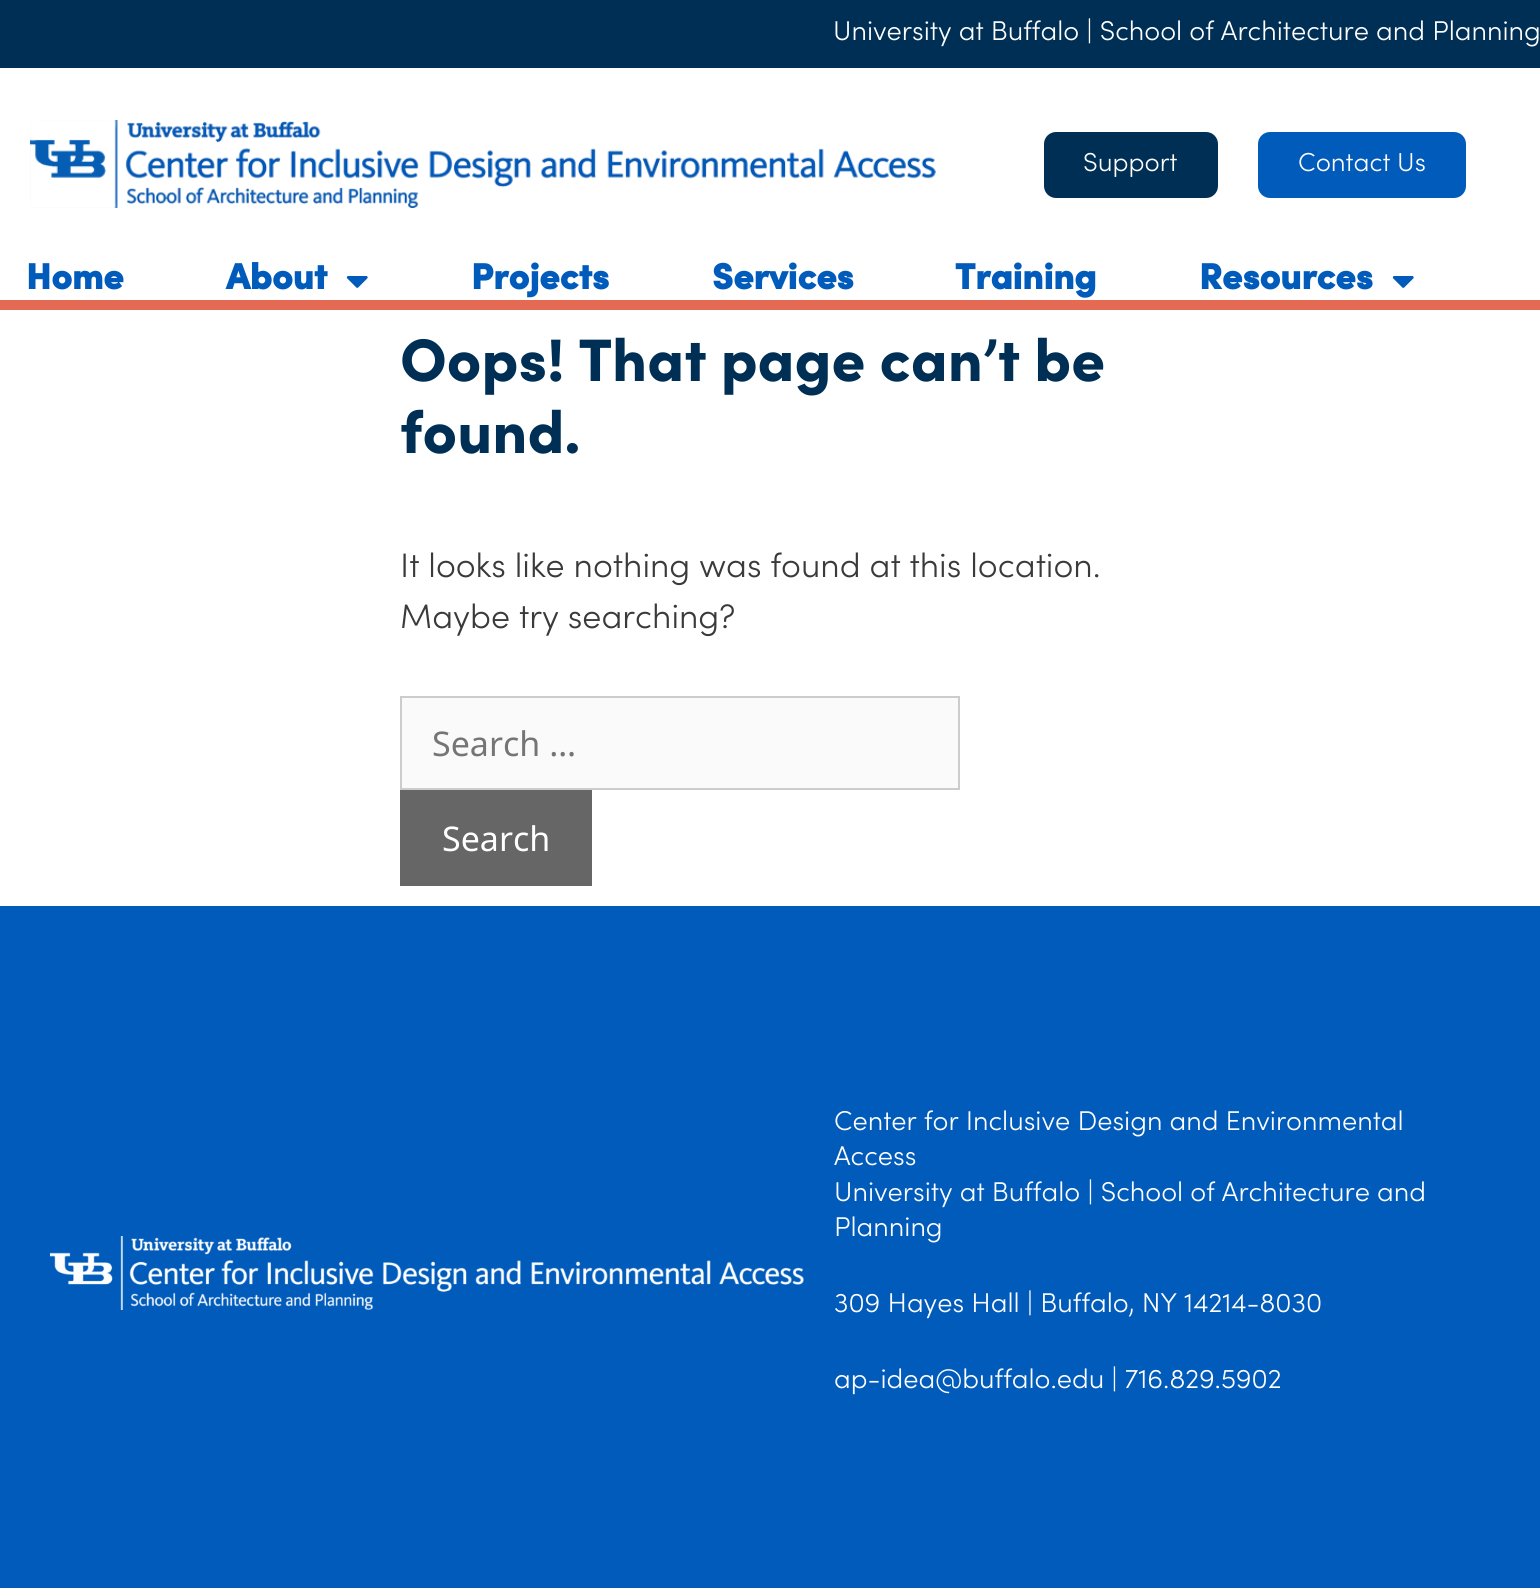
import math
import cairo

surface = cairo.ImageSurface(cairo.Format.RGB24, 1540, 1588)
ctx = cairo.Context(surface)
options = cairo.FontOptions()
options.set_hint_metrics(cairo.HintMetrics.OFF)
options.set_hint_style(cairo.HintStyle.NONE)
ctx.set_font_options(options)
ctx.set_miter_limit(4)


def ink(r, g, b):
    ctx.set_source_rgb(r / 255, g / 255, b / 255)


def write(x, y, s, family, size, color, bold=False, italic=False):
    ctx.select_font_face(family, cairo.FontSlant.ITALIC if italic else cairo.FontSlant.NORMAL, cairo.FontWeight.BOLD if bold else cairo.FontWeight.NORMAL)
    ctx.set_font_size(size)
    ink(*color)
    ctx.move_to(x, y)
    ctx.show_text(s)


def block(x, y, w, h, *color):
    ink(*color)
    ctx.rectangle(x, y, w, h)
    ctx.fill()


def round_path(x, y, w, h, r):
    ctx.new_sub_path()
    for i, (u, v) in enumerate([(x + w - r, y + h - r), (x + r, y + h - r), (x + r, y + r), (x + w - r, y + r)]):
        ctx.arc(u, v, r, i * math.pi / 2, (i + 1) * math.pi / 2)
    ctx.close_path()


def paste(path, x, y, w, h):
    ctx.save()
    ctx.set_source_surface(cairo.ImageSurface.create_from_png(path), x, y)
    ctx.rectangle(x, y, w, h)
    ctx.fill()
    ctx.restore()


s1 = dict(family="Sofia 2", size=27.2, color=(255, 255, 255))
s2 = dict(family="Sofia 2", size=26, color=(255, 255, 255))
s3 = dict(family="Sofia", size=36, color=(0, 91, 187), bold=True)
s4 = dict(family="Sofia", size=60, color=(0, 47, 86))
s5 = dict(family="Sofia 2", size=34, color=(58, 58, 58))
s6 = dict(family="Noto Sans", size=34, color=(117, 117, 117))
s7 = dict(family="Noto Sans", size=34, color=(255, 255, 255))

ink(255, 255, 255)
ctx.paint()
block(0, 0, 1540, 68, 0, 47, 86)
write(833, 40, "University at Buffalo | School of Architecture and Planning", **s1)
paste("pic1.png", 30, 120, 906, 88)
ink(0, 47, 86)
round_path(1044, 132, 174, 66, 12)
ctx.fill()
write(1083, 171, "Support", **s2)
ink(0, 91, 187)
round_path(1258, 132, 208, 66, 12)
ctx.fill()
write(1298, 171, "Contact Us", **s2)
block(0, 300, 1540, 10, 229, 106, 84)
write(26, 289, "Home", **s3)
write(226, 289, "About", **s3)
paste("pic2.png", 346, 276, 22, 12)
write(471, 289, "Projects", **s3)
write(712, 289, "Services", **s3)
write(955, 289, "Training", **s3)
write(1199, 289, "Resources", **s3)
paste("pic2.png", 1392, 276, 22, 12)
write(400, 381, "Oops! That page can’t be", **s4)
write(400, 453, "found.", **s4)
write(400, 577, "It looks like nothing was found at this location.", **s5)
write(400, 628, "Maybe try searching?", **s5)
ink(250, 250, 250)
ctx.rectangle(401, 697, 558, 92)
ctx.fill_preserve()
ink(204, 204, 204)
ctx.stroke()
write(432, 756, "Search …", **s6)
block(400, 790, 192, 96, 102, 102, 102)
write(442, 851, "Search", **s7)
block(0, 906, 1540, 682, 0, 91, 187)
paste("pic3.png", 50, 1236, 754, 74)
write(834, 1130, "Center for Inclusive Design and Environmental", **s1)
write(834, 1165, "Access", **s1)
write(834, 1201, "University at Buffalo | School of Architecture and", **s1)
write(834, 1236, "Planning", **s1)
write(834, 1312, "309 Hayes Hall | Buffalo, NY 14214-8030", **s1)
write(834, 1388, "ap-idea@buffalo.edu | 716.829.5902", **s1)
surface.write_to_png("screenshot.png")
